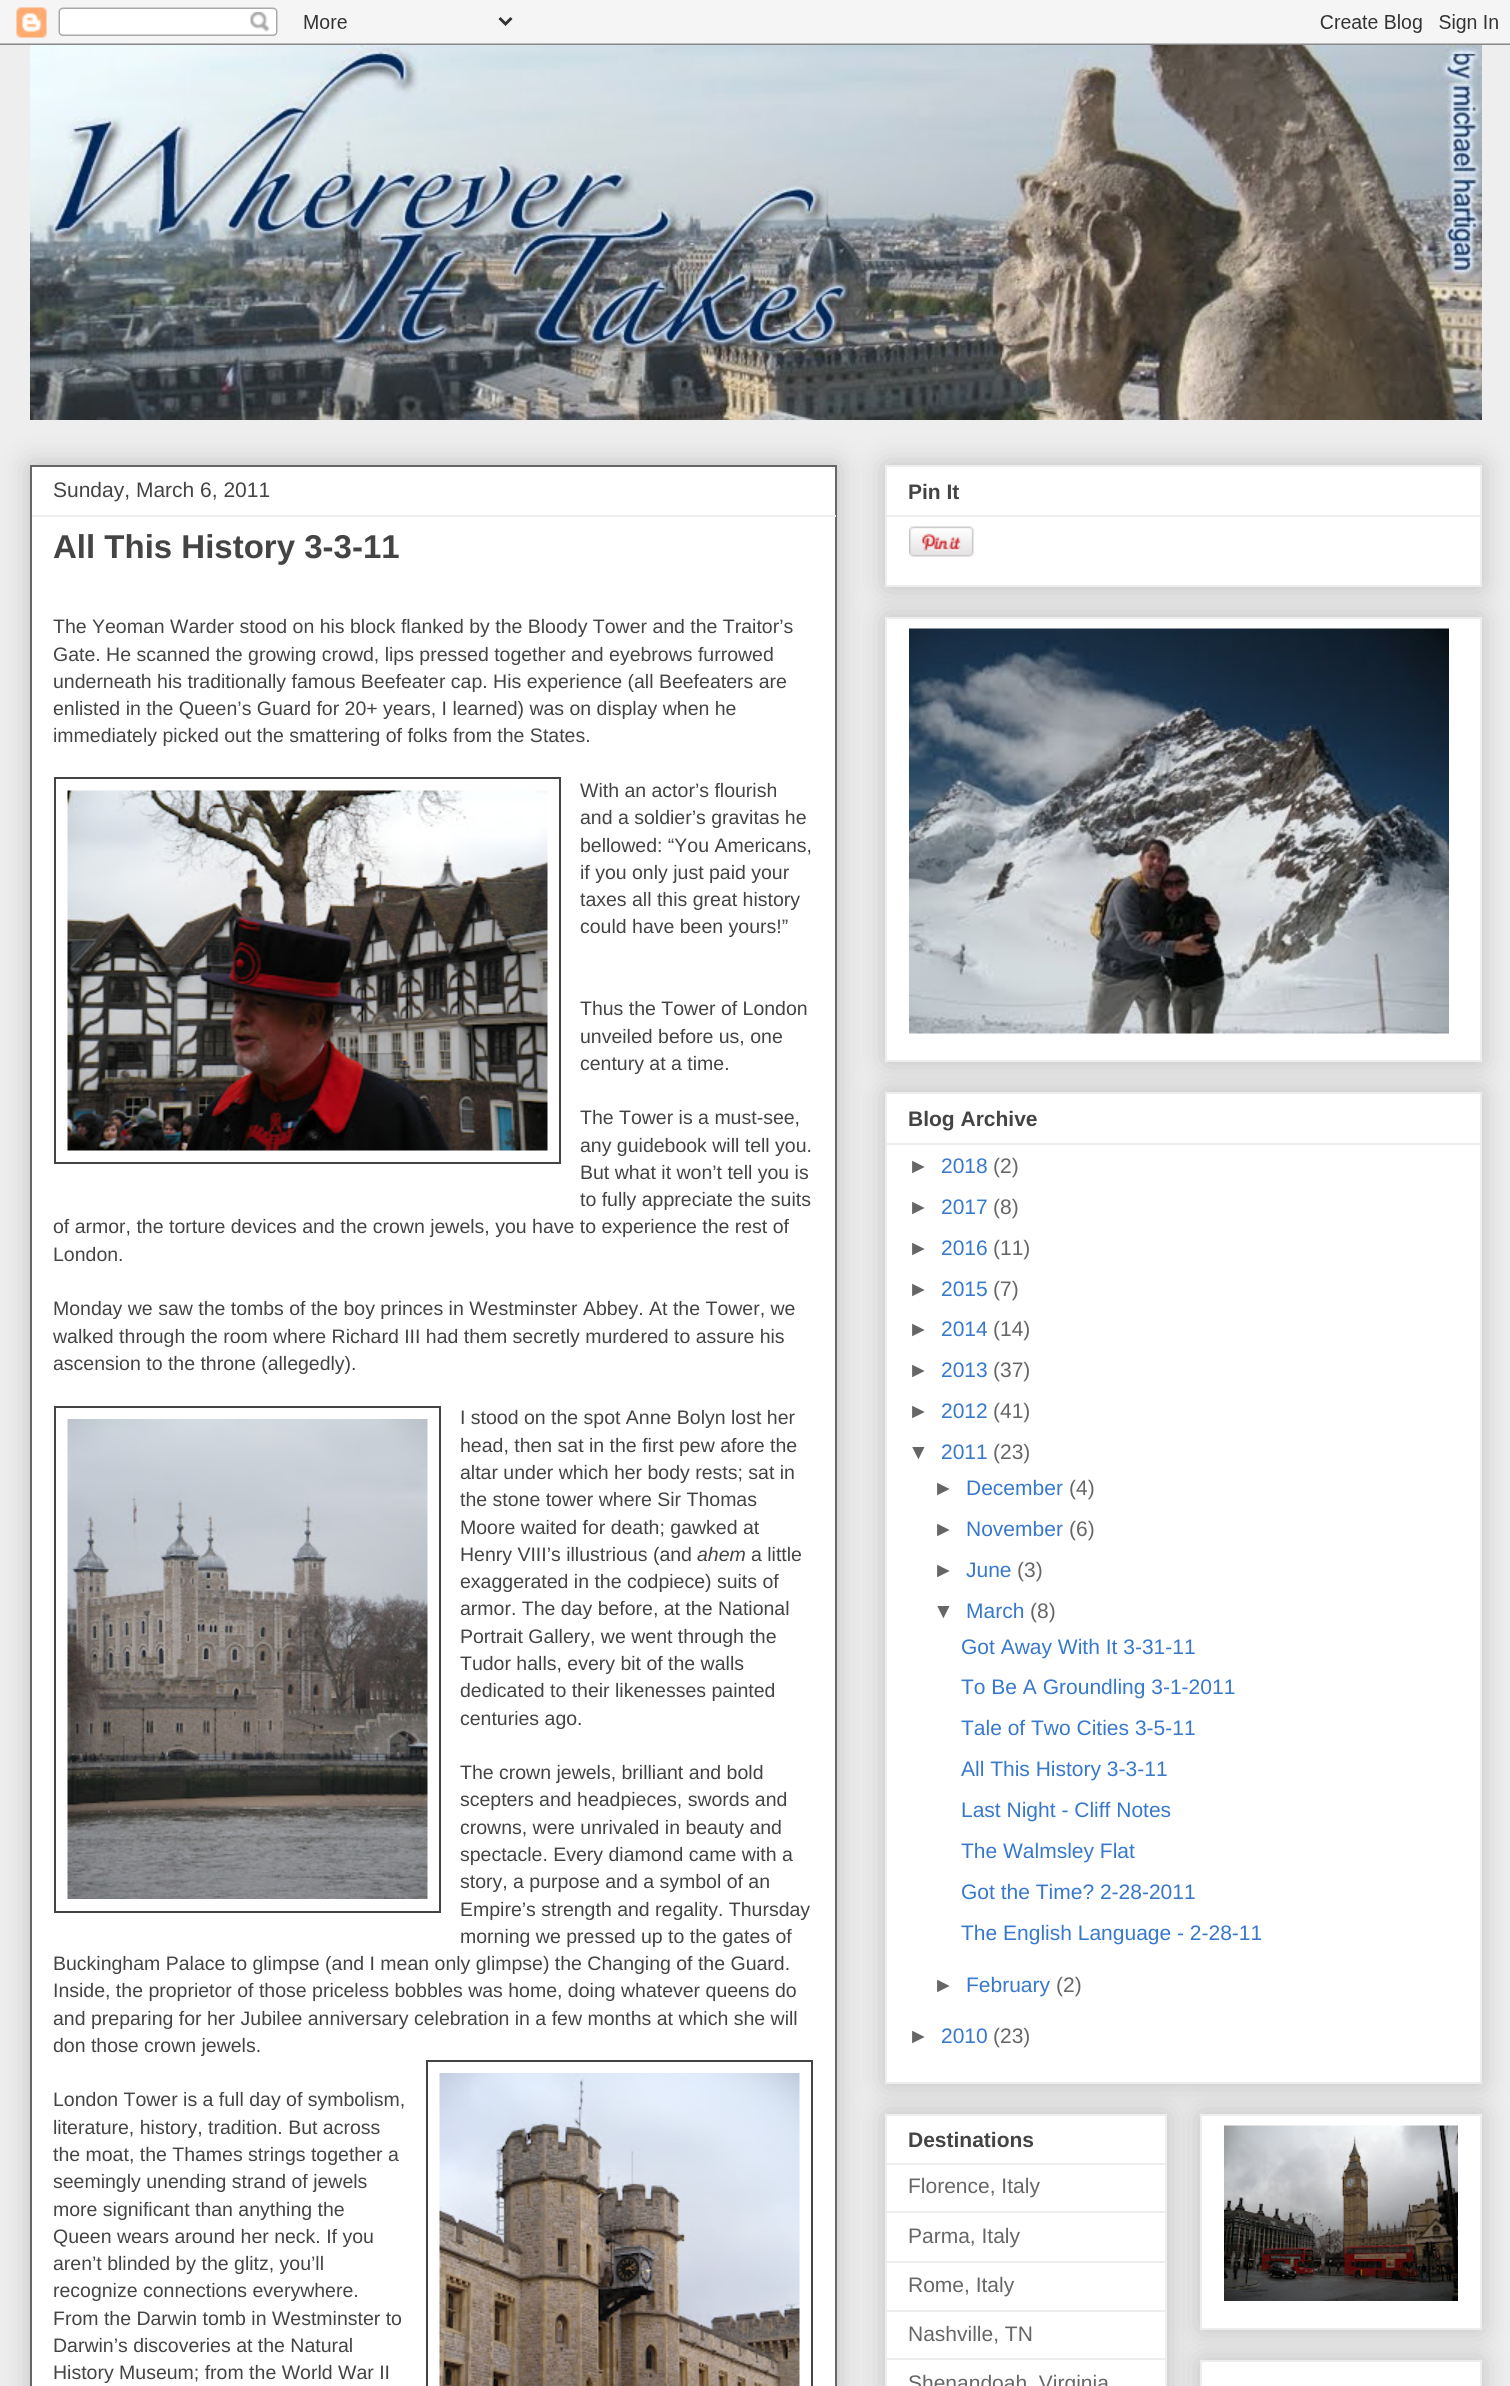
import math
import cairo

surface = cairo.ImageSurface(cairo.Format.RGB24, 1510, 2386)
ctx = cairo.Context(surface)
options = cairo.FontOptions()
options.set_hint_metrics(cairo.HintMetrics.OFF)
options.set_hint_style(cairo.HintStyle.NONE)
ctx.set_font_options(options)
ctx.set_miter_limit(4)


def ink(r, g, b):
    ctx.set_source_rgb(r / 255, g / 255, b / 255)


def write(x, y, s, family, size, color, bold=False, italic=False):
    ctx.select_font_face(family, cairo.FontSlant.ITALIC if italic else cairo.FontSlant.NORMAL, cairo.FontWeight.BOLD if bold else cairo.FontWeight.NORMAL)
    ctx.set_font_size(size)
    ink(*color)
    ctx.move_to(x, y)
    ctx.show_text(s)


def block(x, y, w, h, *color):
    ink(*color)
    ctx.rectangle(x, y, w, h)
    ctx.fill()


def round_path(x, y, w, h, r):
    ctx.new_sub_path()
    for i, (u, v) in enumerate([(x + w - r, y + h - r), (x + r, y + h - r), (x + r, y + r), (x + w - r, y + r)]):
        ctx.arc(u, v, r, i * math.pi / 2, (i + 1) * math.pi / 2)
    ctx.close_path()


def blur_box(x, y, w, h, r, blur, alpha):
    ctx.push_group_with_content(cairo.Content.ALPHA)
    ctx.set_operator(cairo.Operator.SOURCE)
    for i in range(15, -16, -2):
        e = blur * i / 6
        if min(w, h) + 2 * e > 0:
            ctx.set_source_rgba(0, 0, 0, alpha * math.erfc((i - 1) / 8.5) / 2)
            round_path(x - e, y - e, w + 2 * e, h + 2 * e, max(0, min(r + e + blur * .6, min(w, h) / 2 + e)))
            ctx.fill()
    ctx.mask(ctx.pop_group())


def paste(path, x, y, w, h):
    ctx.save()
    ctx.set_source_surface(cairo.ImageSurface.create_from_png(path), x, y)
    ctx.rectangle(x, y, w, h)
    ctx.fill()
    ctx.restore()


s1 = dict(family="Liberation Sans", size=21, color=(68, 68, 68))
s2 = dict(family="Liberation Sans", size=33, color=(68, 68, 68), bold=True)
s3 = dict(family="Liberation Sans", size=19.5, color=(68, 68, 68))
s4 = dict(family="Liberation Sans", size=19.5, color=(68, 68, 68), italic=True)
s5 = dict(family="Liberation Sans", size=21, color=(68, 68, 68), bold=True)
s6 = dict(family="Liberation Sans", size=21, color=(102, 102, 102))
s7 = dict(family="Liberation Sans", size=21, color=(55, 120, 205))

ink(238, 238, 238)
ctx.paint()
paste("pic1.png", 0, 0, 1510, 45)
paste("pic2.png", 30, 45, 1452, 375)
ink(0, 0, 0)
blur_box(30, 465, 807, 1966, 0, 15, 0.2)
ink(255, 255, 255)
ctx.rectangle(31, 466, 805, 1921)
ctx.fill_preserve()
ink(102, 102, 102)
ctx.stroke()
write(53, 497, "Sunday, March 6, 2011", **s1)
block(32, 515, 804, 2, 238, 238, 238)
write(53, 558, "All This History 3-3-11", **s2)
write(53, 633, "The Yeoman Warder stood on his block flanked by the Bloody Tower and the Traitor’s", **s3)
write(53, 661, "Gate. He scanned the growing crowd, lips pressed together and eyebrows furrowed", **s3)
write(53, 688, "underneath his traditionally famous Beefeater cap. His experience (all Beefeaters are", **s3)
write(53, 715, "enlisted in the Queen’s Guard for 20+ years, I learned) was on display when he", **s3)
write(53, 742, "immediately picked out the smattering of folks from the States.", **s3)
ctx.rectangle(55, 778, 505, 385)
ctx.stroke()
paste("pic3.png", 67, 790, 481, 361)
write(580, 797, "With an actor’s flourish", **s3)
write(580, 824, "and a soldier’s gravitas he", **s3)
write(580, 852, "bellowed: “You Americans,", **s3)
write(580, 879, "if you only just paid your", **s3)
write(580, 906, "taxes all this great history", **s3)
write(580, 933, "could have been yours!”", **s3)
write(580, 1015, "Thus the Tower of London", **s3)
write(580, 1043, "unveiled before us, one", **s3)
write(580, 1070, "century at a time.", **s3)
write(580, 1124, "The Tower is a must-see,", **s3)
write(580, 1152, "any guidebook will tell you.", **s3)
write(580, 1179, "But what it won’t tell you is", **s3)
write(580, 1206, "to fully appreciate the suits", **s3)
write(53, 1233, "of armor, the torture devices and the crown jewels, you have to experience the rest of", **s3)
write(53, 1261, "London.", **s3)
write(53, 1315, "Monday we saw the tombs of the boy princes in Westminster Abbey. At the Tower, we", **s3)
write(53, 1343, "walked through the room where Richard III had them secretly murdered to assure his", **s3)
write(53, 1370, "ascension to the throne (allegedly).", **s3)
ctx.rectangle(55, 1407, 385, 505)
ctx.stroke()
paste("pic4.png", 67, 1419, 361, 480)
write(460, 1424, "I stood on the spot Anne Bolyn lost her", **s3)
write(460, 1452, "head, then sat in the first pew afore the", **s3)
write(460, 1479, "altar under which her body rests; sat in", **s3)
write(460, 1506, "the stone tower where Sir Thomas", **s3)
write(460, 1534, "Moore waited for death; gawked at", **s3)
write(460, 1561, "Henry VIII’s illustrious (and", **s3)
write(697, 1561, "ahem", **s4)
write(751, 1561, "a little", **s3)
write(460, 1588, "exaggerated in the codpiece) suits of", **s3)
write(460, 1615, "armor. The day before, at the National", **s3)
write(460, 1643, "Portrait Gallery, we went through the", **s3)
write(460, 1670, "Tudor halls, every bit of the walls", **s3)
write(460, 1697, "dedicated to their likenesses painted", **s3)
write(460, 1725, "centuries ago.", **s3)
write(460, 1779, "The crown jewels, brilliant and bold", **s3)
write(460, 1806, "scepters and headpieces, swords and", **s3)
write(460, 1834, "crowns, were unrivaled in beauty and", **s3)
write(460, 1861, "spectacle. Every diamond came with a", **s3)
write(460, 1888, "story, a purpose and a symbol of an", **s3)
write(460, 1916, "Empire’s strength and regality. Thursday", **s3)
write(460, 1943, "morning we pressed up to the gates of", **s3)
write(53, 1970, "Buckingham Palace to glimpse (and I mean only glimpse) the Changing of the Guard.", **s3)
write(53, 1997, "Inside, the proprietor of those priceless bobbles was home, doing whatever queens do", **s3)
write(53, 2025, "and preparing for her Jubilee anniversary celebration in a few months at which she will", **s3)
write(53, 2052, "don those crown jewels.", **s3)
write(53, 2106, "London Tower is a full day of symbolism,", **s3)
write(53, 2134, "literature, history, tradition. But across", **s3)
write(53, 2161, "the moat, the Thames strings together a", **s3)
write(53, 2188, "seemingly unending strand of jewels", **s3)
write(53, 2216, "more significant than anything the", **s3)
write(53, 2243, "Queen wears around her neck. If you", **s3)
write(53, 2270, "aren’t blinded by the glitz, you’ll", **s3)
write(53, 2297, "recognize connections everywhere.", **s3)
write(53, 2325, "From the Darwin tomb in Westminster to", **s3)
write(53, 2352, "Darwin’s discoveries at the Natural", **s3)
write(53, 2379, "History Museum; from the World War II", **s3)
ctx.rectangle(427, 2061, 385, 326)
ctx.stroke()
paste("pic5.png", 439, 2073, 361, 313)
ink(0, 0, 0)
blur_box(885, 465, 597, 122, 0, 15, 0.2)
ink(255, 255, 255)
ctx.rectangle(886, 466, 595, 120)
ctx.fill_preserve()
ink(238, 238, 238)
ctx.stroke()
write(908, 499, "Pin It", **s5)
block(887, 515, 594, 2, 238, 238, 238)
paste("pic6.png", 909, 526, 65, 31)
ink(0, 0, 0)
blur_box(885, 617, 597, 445, 0, 15, 0.2)
ink(255, 255, 255)
ctx.rectangle(886, 618, 595, 443)
ctx.fill_preserve()
ink(238, 238, 238)
ctx.stroke()
paste("pic7.png", 909, 628, 540, 406)
ink(0, 0, 0)
blur_box(885, 1092, 597, 992, 0, 15, 0.2)
ink(255, 255, 255)
ctx.rectangle(886, 1093, 595, 990)
ctx.fill_preserve()
ink(238, 238, 238)
ctx.stroke()
write(908, 1126, "Blog Archive", **s5)
block(887, 1143, 594, 2, 238, 238, 238)
write(908, 1173, "►", **s6)
write(941, 1173, "2018", **s7)
write(993, 1173, "(2)", **s6)
write(908, 1214, "►", **s6)
write(941, 1214, "2017", **s7)
write(993, 1214, "(8)", **s6)
write(908, 1255, "►", **s6)
write(941, 1255, "2016", **s7)
write(993, 1255, "(11)", **s6)
write(908, 1296, "►", **s6)
write(941, 1296, "2015", **s7)
write(993, 1296, "(7)", **s6)
write(908, 1336, "►", **s6)
write(941, 1336, "2014", **s7)
write(993, 1336, "(14)", **s6)
write(908, 1377, "►", **s6)
write(941, 1377, "2013", **s7)
write(993, 1377, "(37)", **s6)
write(908, 1418, "►", **s6)
write(941, 1418, "2012", **s7)
write(993, 1418, "(41)", **s6)
write(908, 1459, "▼", **s6)
write(941, 1459, "2011", **s7)
write(993, 1459, "(23)", **s6)
write(933, 1495, "►", **s6)
write(966, 1495, "December", **s7)
write(1069, 1495, "(4)", **s6)
write(933, 1536, "►", **s6)
write(966, 1536, "November", **s7)
write(1069, 1536, "(6)", **s6)
write(933, 1577, "►", **s6)
write(966, 1577, "June", **s7)
write(1017, 1577, "(3)", **s6)
write(933, 1618, "▼", **s6)
write(966, 1618, "March", **s7)
write(1030, 1618, "(8)", **s6)
write(961, 1654, "Got Away With It 3-31-11", **s7)
write(961, 1694, "To Be A Groundling 3-1-2011", **s7)
write(961, 1735, "Tale of Two Cities 3-5-11", **s7)
write(961, 1776, "All This History 3-3-11", **s7)
write(961, 1817, "Last Night - Cliff Notes", **s7)
write(961, 1858, "The Walmsley Flat", **s7)
write(961, 1899, "Got the Time? 2-28-2011", **s7)
write(961, 1940, "The English Language - 2-28-11", **s7)
write(933, 1992, "►", **s6)
write(966, 1992, "February", **s7)
write(1056, 1992, "(2)", **s6)
write(908, 2043, "►", **s6)
write(941, 2043, "2010", **s7)
write(993, 2043, "(23)", **s6)
ink(0, 0, 0)
blur_box(885, 2114, 282, 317, 0, 15, 0.2)
ink(255, 255, 255)
ctx.rectangle(886, 2115, 280, 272)
ctx.fill_preserve()
ink(238, 238, 238)
ctx.stroke()
write(908, 2147, "Destinations", **s5)
block(887, 2163, 279, 2, 238, 238, 238)
write(908, 2193, "Florence, Italy", **s6)
block(887, 2211, 279, 2, 238, 238, 238)
write(908, 2243, "Parma, Italy", **s6)
block(887, 2261, 279, 2, 238, 238, 238)
write(908, 2292, "Rome, Italy", **s6)
block(887, 2310, 279, 2, 238, 238, 238)
write(908, 2341, "Nashville, TN", **s6)
block(887, 2358, 279, 2, 238, 238, 238)
write(908, 2390, "Shenandoah, Virginia", **s6)
ink(0, 0, 0)
blur_box(1200, 2114, 282, 216, 0, 15, 0.2)
ink(255, 255, 255)
ctx.rectangle(1201, 2115, 280, 214)
ctx.fill_preserve()
ink(238, 238, 238)
ctx.stroke()
paste("pic8.png", 1224, 2125, 234, 176)
ink(0, 0, 0)
blur_box(1200, 2360, 282, 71, 0, 15, 0.2)
ink(255, 255, 255)
ctx.rectangle(1201, 2361, 280, 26)
ctx.fill_preserve()
ink(238, 238, 238)
ctx.stroke()
surface.write_to_png("screenshot.png")
